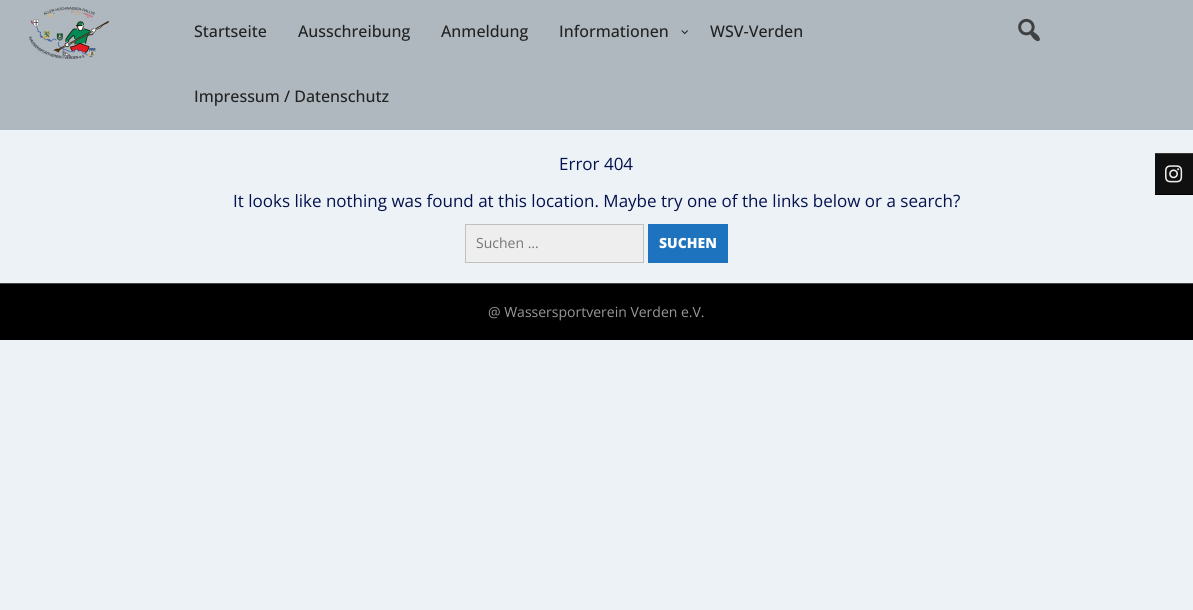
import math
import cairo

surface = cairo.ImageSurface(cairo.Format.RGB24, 1193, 610)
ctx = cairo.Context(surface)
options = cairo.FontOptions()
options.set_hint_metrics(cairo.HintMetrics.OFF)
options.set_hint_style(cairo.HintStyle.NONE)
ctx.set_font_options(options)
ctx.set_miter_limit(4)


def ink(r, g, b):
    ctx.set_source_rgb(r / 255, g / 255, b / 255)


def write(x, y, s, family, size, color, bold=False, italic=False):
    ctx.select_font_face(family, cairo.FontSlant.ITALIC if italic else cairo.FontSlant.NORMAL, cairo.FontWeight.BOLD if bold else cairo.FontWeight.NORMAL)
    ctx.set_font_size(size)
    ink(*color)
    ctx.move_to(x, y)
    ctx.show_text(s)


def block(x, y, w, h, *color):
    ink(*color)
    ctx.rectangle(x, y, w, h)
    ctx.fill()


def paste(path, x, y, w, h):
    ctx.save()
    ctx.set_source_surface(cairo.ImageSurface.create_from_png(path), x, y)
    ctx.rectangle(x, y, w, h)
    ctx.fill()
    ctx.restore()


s1 = dict(family="Open Sans Medium", size=16, color=(34, 34, 34))
s2 = dict(family="Open Sans", size=17, color=(4, 19, 78))
s3 = dict(family="Open Sans", size=14, color=(117, 117, 117))
s4 = dict(family="Open Sans ExtraBold", size=14, color=(255, 255, 255))
s5 = dict(family="Open Sans", size=14, color=(153, 153, 153))

ink(237, 242, 247)
ctx.paint()
block(0, 0, 1193, 130, 175, 184, 191)
paste("pic1.png", 29, 7, 80, 52)
write(194, 37, "Startseite", **s1)
write(298, 37, "Ausschreibung", **s1)
write(441, 37, "Anmeldung", **s1)
write(559, 37, "Informationen", **s1)
paste("pic2.png", 681, 30, 8, 5)
write(710, 37, "WSV-Verden", **s1)
write(194, 102, "Impressum / Datenschutz", **s1)
paste("pic3.png", 1018, 18, 22, 24)
block(1155, 154, 38, 40, 16, 16, 16)
block(1155, 153, 38, 1, 56, 56, 56)
block(1155, 194, 38, 1, 0, 0, 0)
paste("pic4.png", 1165, 165, 18, 18)
write(559, 170, "Error 404", **s2)
write(233, 207, "It looks like nothing was found at this location. Maybe try one of the links below or a search?", **s2)
ink(238, 238, 238)
ctx.rectangle(465.5, 224.5, 178, 38)
ctx.fill_preserve()
ink(192, 192, 192)
ctx.set_line_width(1)
ctx.stroke()
write(476, 248, "Suchen …", **s3)
block(648, 224, 80, 39, 30, 115, 190)
write(659, 248, "SUCHEN", **s4)
block(0, 283, 1193, 1, 68, 68, 68)
block(0, 284, 1193, 56, 0, 0, 0)
write(488, 317, "@ Wassersportverein Verden e.V.", **s5)
surface.write_to_png("screenshot.png")
